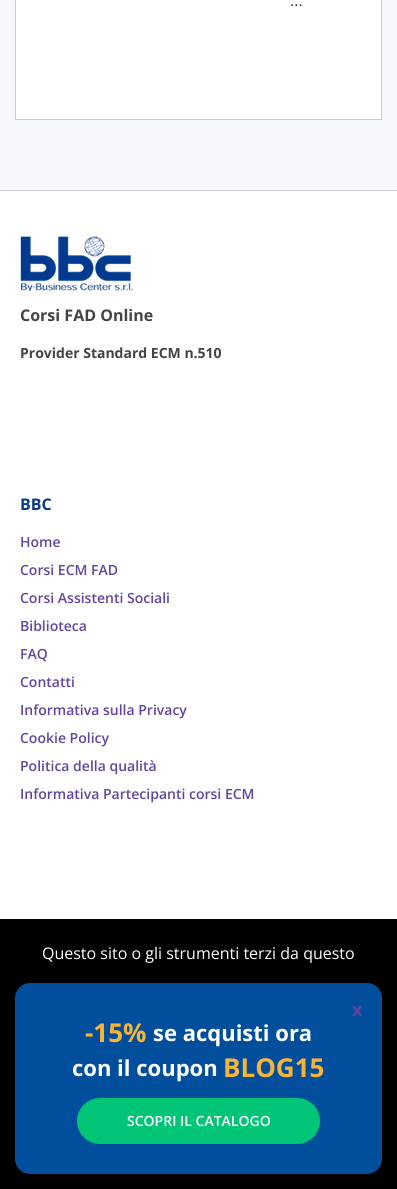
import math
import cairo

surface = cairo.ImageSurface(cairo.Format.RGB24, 397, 1189)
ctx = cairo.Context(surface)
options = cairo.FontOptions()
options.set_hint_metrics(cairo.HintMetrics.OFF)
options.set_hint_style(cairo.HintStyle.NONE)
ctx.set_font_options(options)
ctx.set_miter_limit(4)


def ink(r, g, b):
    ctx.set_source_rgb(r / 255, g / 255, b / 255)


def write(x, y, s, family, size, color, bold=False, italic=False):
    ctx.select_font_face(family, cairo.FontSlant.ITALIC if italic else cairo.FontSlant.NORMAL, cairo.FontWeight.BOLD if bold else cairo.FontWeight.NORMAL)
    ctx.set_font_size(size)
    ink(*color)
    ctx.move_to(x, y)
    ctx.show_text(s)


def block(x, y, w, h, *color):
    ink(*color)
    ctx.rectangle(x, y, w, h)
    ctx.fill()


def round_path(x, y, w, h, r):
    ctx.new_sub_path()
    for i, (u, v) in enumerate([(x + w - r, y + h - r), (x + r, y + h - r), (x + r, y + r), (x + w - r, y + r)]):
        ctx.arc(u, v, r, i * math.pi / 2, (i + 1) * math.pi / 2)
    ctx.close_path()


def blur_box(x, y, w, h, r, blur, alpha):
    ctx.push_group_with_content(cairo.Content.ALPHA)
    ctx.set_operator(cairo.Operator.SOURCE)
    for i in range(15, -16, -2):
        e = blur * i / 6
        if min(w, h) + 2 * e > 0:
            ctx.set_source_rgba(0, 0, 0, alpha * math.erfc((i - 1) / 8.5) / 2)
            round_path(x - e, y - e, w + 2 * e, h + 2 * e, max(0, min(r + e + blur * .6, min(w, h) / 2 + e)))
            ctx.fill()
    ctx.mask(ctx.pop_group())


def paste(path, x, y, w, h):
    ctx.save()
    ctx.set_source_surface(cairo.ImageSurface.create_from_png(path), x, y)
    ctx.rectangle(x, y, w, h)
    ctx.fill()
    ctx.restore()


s1 = dict(family="Open Sans", size=16, color=(68, 68, 68))
s2 = dict(family="Open Sans", size=18, color=(98, 69, 160), bold=True)
s3 = dict(family="Open Sans", size=26, color=(246, 181, 54), bold=True)
s4 = dict(family="Open Sans", size=22, color=(255, 255, 255), bold=True)
s5 = dict(family="Open Sans SemiBold", size=14, color=(255, 255, 255))
s6 = dict(family="Open Sans", size=16, color=(68, 68, 68), bold=True)
s7 = dict(family="Open Sans", size=14, color=(68, 68, 68), bold=True)
s8 = dict(family="Open Sans", size=16, color=(9, 59, 136), bold=True)
s9 = dict(family="Open Sans SemiBold", size=14, color=(98, 69, 160))
s10 = dict(family="Open Sans", size=16, color=(255, 255, 255))

ink(255, 255, 255)
ctx.paint()
block(0, 0, 397, 190, 244, 247, 251)
ink(255, 255, 255)
ctx.rectangle(15.5, -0.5, 366, 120)
ctx.fill_preserve()
ink(204, 204, 204)
ctx.set_line_width(1)
ctx.stroke()
write(290, 6, "...", **s1)
block(0, 919, 397, 270, 0, 0, 0)
ink(0, 0, 0)
blur_box(5, 973, 387, 211, 25, 10, 0.5)
ink(0, 78, 156)
round_path(15, 983, 367, 191, 15)
ctx.fill()
write(352, 1016, "x", **s2)
write(85, 1042, "-15%", **s3)
write(153, 1041, "se acquisti ora", **s4)
write(72, 1076, "con il coupon", **s4)
write(223, 1077, "BLOG15", **s3)
ink(0, 197, 119)
round_path(77, 1098, 243, 46, 23)
ctx.fill()
write(127, 1126, "SCOPRI IL CATALOGO", **s5)
block(0, 190, 397, 1, 204, 204, 204)
paste("pic1.png", 20, 236, 113, 55)
write(20, 321, "Corsi FAD Online", **s6)
write(20, 358, "Provider Standard ECM n.510", **s7)
write(20, 510, "BBC", **s8)
write(20, 547, "Home", **s9)
write(20, 575, "Corsi ECM FAD", **s9)
write(20, 603, "Corsi Assistenti Sociali", **s9)
write(20, 631, "Biblioteca", **s9)
write(20, 659, "FAQ", **s9)
write(20, 687, "Contatti", **s9)
write(20, 715, "Informativa sulla Privacy", **s9)
write(20, 743, "Cookie Policy", **s9)
write(20, 771, "Politica della qualità", **s9)
write(20, 799, "Informativa Partecipanti corsi ECM", **s9)
write(42, 959, "Questo sito o gli strumenti terzi da questo", **s10)
surface.write_to_png("screenshot.png")
